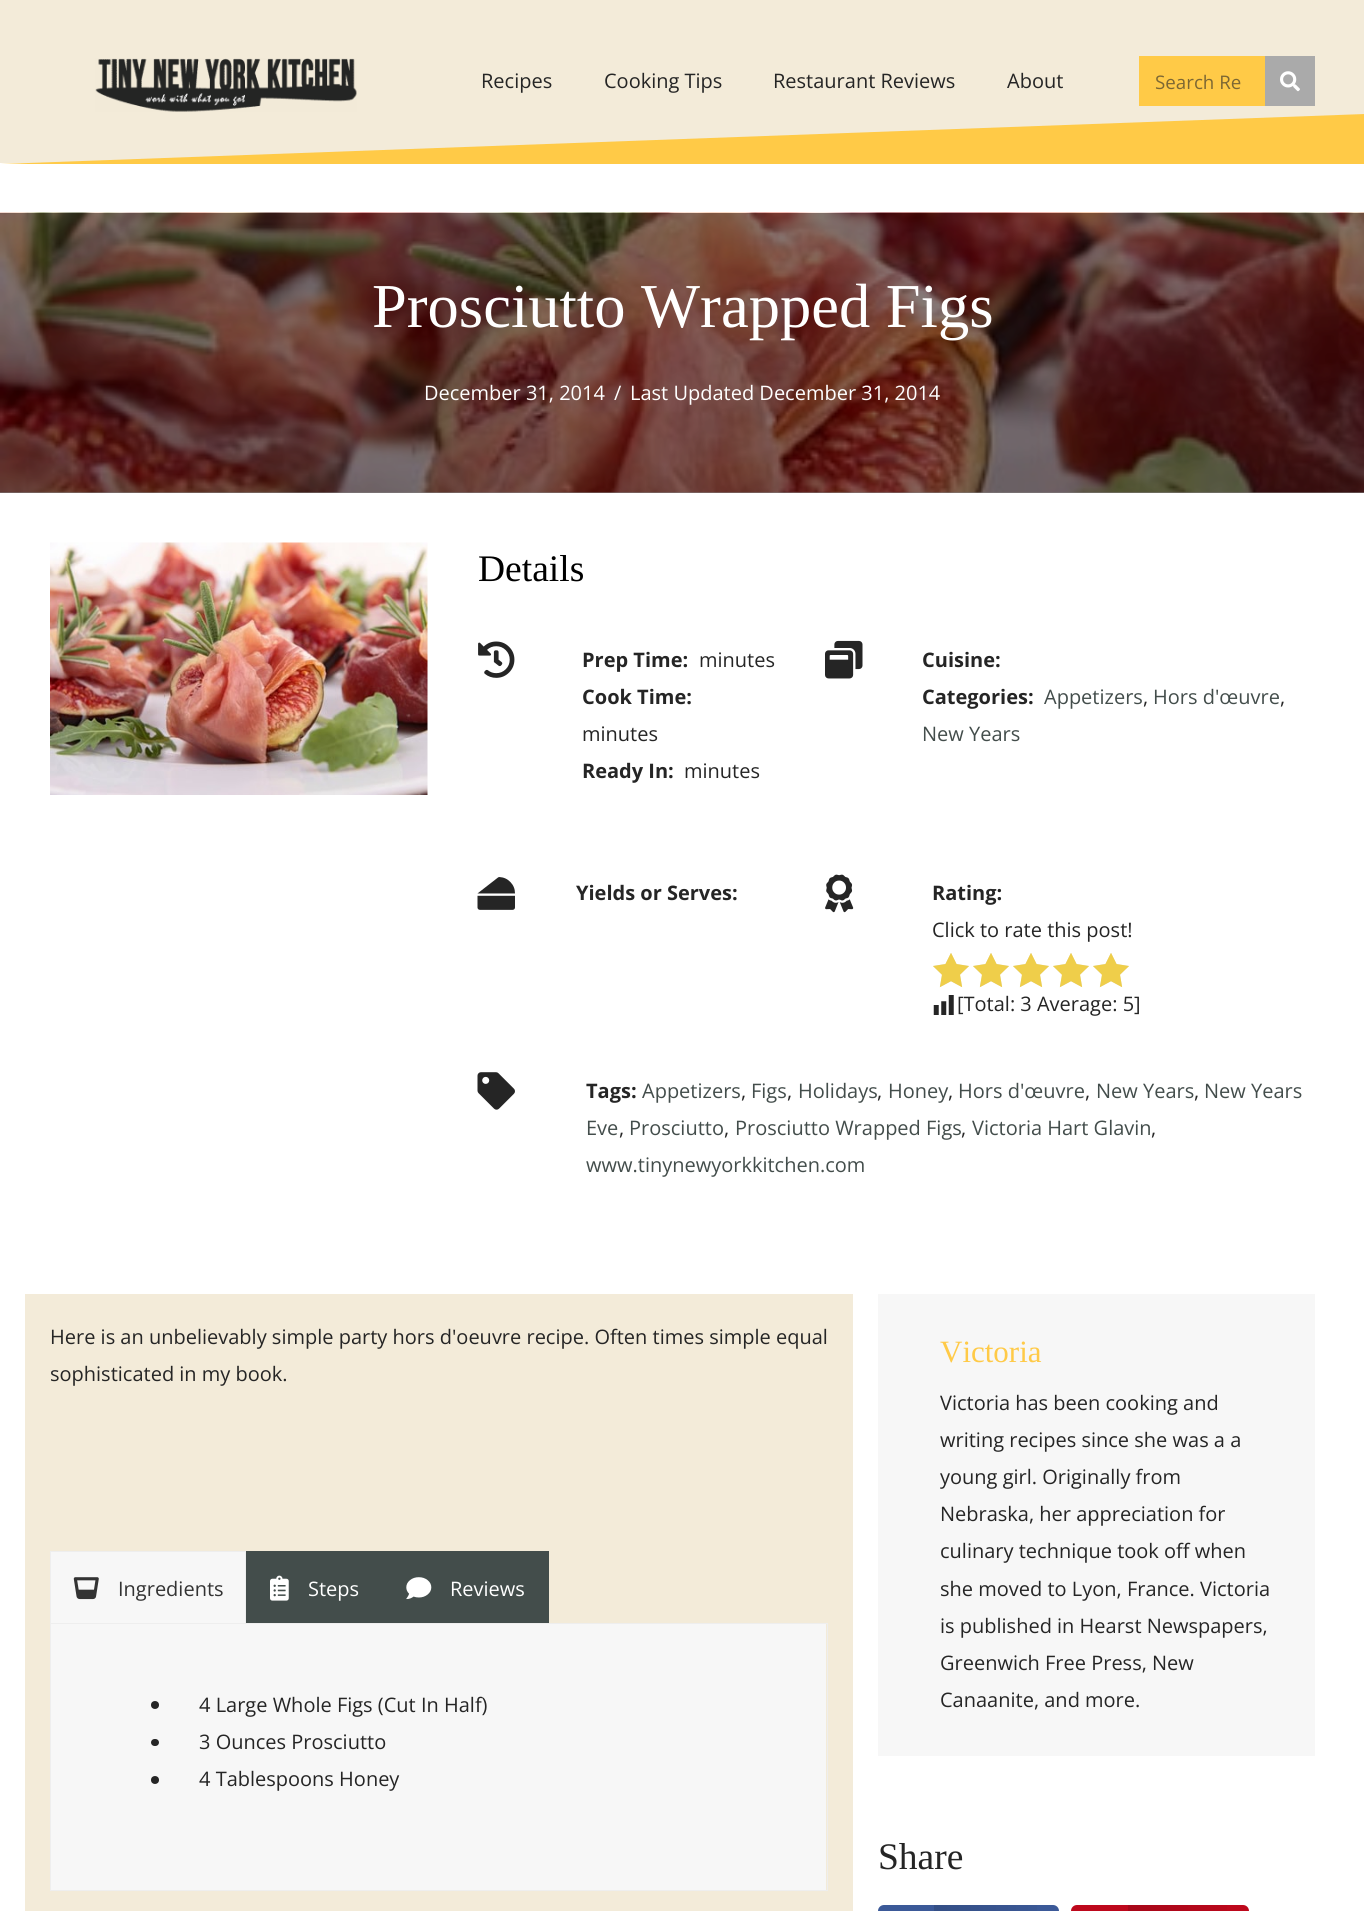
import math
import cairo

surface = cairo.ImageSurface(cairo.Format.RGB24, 1364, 1911)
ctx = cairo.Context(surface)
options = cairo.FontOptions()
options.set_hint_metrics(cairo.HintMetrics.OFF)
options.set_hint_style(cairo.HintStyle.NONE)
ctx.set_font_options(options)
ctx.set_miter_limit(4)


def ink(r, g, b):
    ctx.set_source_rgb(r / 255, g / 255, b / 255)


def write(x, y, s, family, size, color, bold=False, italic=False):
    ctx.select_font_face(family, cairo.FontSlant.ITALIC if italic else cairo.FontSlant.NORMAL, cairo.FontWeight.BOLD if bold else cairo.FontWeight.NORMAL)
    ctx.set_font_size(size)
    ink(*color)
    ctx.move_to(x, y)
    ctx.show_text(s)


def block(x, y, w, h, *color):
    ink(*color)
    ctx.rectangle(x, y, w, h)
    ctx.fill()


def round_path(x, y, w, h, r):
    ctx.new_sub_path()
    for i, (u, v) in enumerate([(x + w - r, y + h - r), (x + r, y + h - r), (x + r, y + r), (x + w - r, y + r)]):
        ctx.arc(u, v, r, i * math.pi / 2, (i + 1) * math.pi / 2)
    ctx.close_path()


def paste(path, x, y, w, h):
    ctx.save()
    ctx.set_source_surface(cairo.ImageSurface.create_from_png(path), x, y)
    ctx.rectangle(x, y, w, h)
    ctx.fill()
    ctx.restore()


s1 = dict(family="Open Sans", size=20, color=(37, 37, 37))
s2 = dict(family="Open Sans", size=18.75, color=(124, 103, 51))
s3 = dict(family="Liberation Serif", size=62.5, color=(255, 255, 255))
s4 = dict(family="Open Sans", size=20, color=(255, 255, 255))
s5 = dict(family="Liberation Serif", size=37.5, color=(0, 0, 0))
s6 = dict(family="Open Sans", size=20, color=(37, 37, 37), bold=True)
s7 = dict(family="Open Sans", size=20, color=(67, 77, 75))
s8 = dict(family="Open Sans", size=20, color=(51, 51, 51))
s9 = dict(family="Liberation Serif", size=31, color=(255, 202, 71))
s10 = dict(family="Liberation Serif", size=37.5, color=(37, 37, 37))

ink(255, 255, 255)
ctx.paint()
block(0, 492, 1364, 1, 133, 128, 128)
block(0, 0, 1364, 163, 243, 235, 217)
paste("pic1.png", 95, 58, 262, 54)
write(481, 88, "Recipes", **s1)
write(604, 88, "Cooking Tips", **s1)
write(773, 88, "Restaurant Reviews", **s1)
write(1007, 88, "About", **s1)
block(1139, 56, 126, 50, 255, 202, 71)
write(1155, 89, "Search Re", **s2)
block(1265, 56, 50, 50, 170, 170, 170)
paste("pic2.png", 1280, 71, 20, 21)
ink(255, 202, 71)
ctx.new_path()
ctx.move_to(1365, 114)
ctx.line_to(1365, 164)
ctx.line_to(0, 164)
ctx.close_path()
ctx.fill()
paste("pic3.png", 0, 212, 1364, 281)
write(372, 327, "Prosciutto Wrapped Figs", **s3)
write(424, 400, "December 31, 2014", **s4)
write(614, 400, "/", **s4)
write(630, 400, "Last Updated December 31, 2014", **s4)
paste("pic4.png", 50, 542, 378, 253)
write(478, 581, "Details", **s5)
paste("pic5.png", 478, 641, 37, 37)
write(582, 667, "Prep Time:", **s6)
write(699, 667, "minutes", **s1)
write(582, 704, "Cook Time:", **s6)
write(582, 741, "minutes", **s1)
write(582, 778, "Ready In:", **s6)
write(684, 778, "minutes", **s1)
paste("pic6.png", 825, 640, 38, 39)
write(922, 667, "Cuisine:", **s6)
write(922, 704, "Categories:", **s6)
write(1044, 704, "Appetizers", **s7)
write(1143, 704, ",", **s1)
write(1153, 704, "Hors d'œuvre", **s7)
write(1280, 704, ",", **s1)
write(922, 741, "New Years", **s7)
paste("pic7.png", 477, 877, 38, 33)
write(576, 900, "Yields or Serves:", **s6)
paste("pic8.png", 825, 874, 29, 39)
write(932, 900, "Rating:", **s6)
write(932, 937, "Click to rate this post!", **s1)
paste("pic9.png", 933, 953, 196, 34)
paste("pic10.png", 933, 953, 196, 35)
paste("pic11.png", 933, 995, 21, 20)
write(957, 1011, "[Total: 3 Average: 5]", **s1)
paste("pic12.png", 477, 1072, 38, 38)
write(586, 1098, "Tags:", **s6)
write(642, 1098, "Appetizers", **s7)
write(741, 1098, ",", **s1)
write(751, 1098, "Figs", **s7)
write(787, 1098, ",", **s1)
write(798, 1098, "Holidays", **s7)
write(877, 1098, ",", **s1)
write(888, 1098, "Honey", **s7)
write(948, 1098, ",", **s1)
write(958, 1098, "Hors d'œuvre", **s7)
write(1085, 1098, ",", **s1)
write(1096, 1098, "New Years", **s7)
write(1194, 1098, ",", **s1)
write(1204, 1098, "New Years", **s7)
write(586, 1135, "Eve", **s7)
write(619, 1135, ",", **s1)
write(629, 1135, "Prosciutto", **s7)
write(724, 1135, ",", **s1)
write(735, 1135, "Prosciutto Wrapped Figs", **s7)
write(961, 1135, ",", **s1)
write(972, 1135, "Victoria Hart Glavin", **s7)
write(1151, 1135, ",", **s1)
write(586, 1172, "www.tinynewyorkkitchen.com", **s7)
block(25, 1294, 828, 617, 243, 235, 217)
write(50, 1344, "Here is an unbelievably simple party hors d'oeuvre recipe. Often times simple equal", **s1)
write(50, 1381, "sophisticated in my book.", **s1)
block(51, 1552, 194, 71, 247, 247, 247)
block(50, 1551, 196, 1, 238, 238, 238)
block(245, 1551, 1, 72, 238, 238, 238)
block(50, 1551, 1, 72, 238, 238, 238)
paste("pic13.png", 73, 1577, 26, 23)
write(118, 1596, "Ingredients", **s8)
block(246, 1551, 303, 72, 67, 77, 75)
paste("pic14.png", 270, 1575, 19, 26)
write(308, 1596, "Steps", **s4)
paste("pic15.png", 406, 1577, 26, 23)
write(450, 1596, "Reviews", **s4)
ctx.rectangle(50.5, 1623.5, 777, 267)
ink(238, 238, 238)
ctx.set_line_width(1)
ctx.stroke()
block(51, 1624, 775, 266, 247, 247, 247)
ink(37, 37, 37)
ctx.arc(155, 1705, 4, 0, 2 * math.pi)
ctx.fill()
write(199, 1712, "4 Large Whole Figs (Cut In Half)", **s1)
round_path(151, 1739, 8, 7, 3.5)
ctx.fill()
write(199, 1749, "3 Ounces Prosciutto", **s1)
ctx.new_path()
ctx.arc(155, 1780, 4, 0, 2 * math.pi)
ctx.fill()
write(199, 1786, "4 Tablespoons Honey", **s1)
block(878, 1294, 437, 462, 247, 247, 247)
write(940, 1362, "Victoria", **s9)
write(940, 1410, "Victoria has been cooking and", **s1)
write(940, 1447, "writing recipes since she was a a", **s1)
write(940, 1484, "young girl. Originally from", **s1)
write(940, 1521, "Nebraska, her appreciation for", **s1)
write(940, 1558, "culinary technique took off when", **s1)
write(940, 1596, "she moved to Lyon, France. Victoria", **s1)
write(940, 1633, "is published in Hearst Newspapers,", **s1)
write(940, 1670, "Greenwich Free Press, New", **s1)
write(940, 1707, "Canaanite, and more.", **s1)
write(878, 1869, "Share", **s10)
ink(59, 89, 152)
round_path(878, 1905, 181, 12, 6)
ctx.fill()
gradient = cairo.LinearGradient(934, 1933, 1059, 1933)
gradient.add_color_stop_rgba(0, 0, 0, 0, 0.12)
gradient.add_color_stop_rgba(1, 0, 0, 0, 0)
ctx.set_source(gradient)
ctx.rectangle(934, 1905, 103, 6)
ctx.fill()
ink(189, 8, 28)
round_path(1071, 1905, 178, 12, 6)
ctx.fill()
gradient = cairo.LinearGradient(1128, 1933, 1249, 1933)
gradient.add_color_stop_rgba(0, 0, 0, 0, 0.12)
gradient.add_color_stop_rgba(1, 0, 0, 0, 0)
ctx.set_source(gradient)
ctx.rectangle(1128, 1905, 99, 6)
ctx.fill()
surface.write_to_png("screenshot.png")
